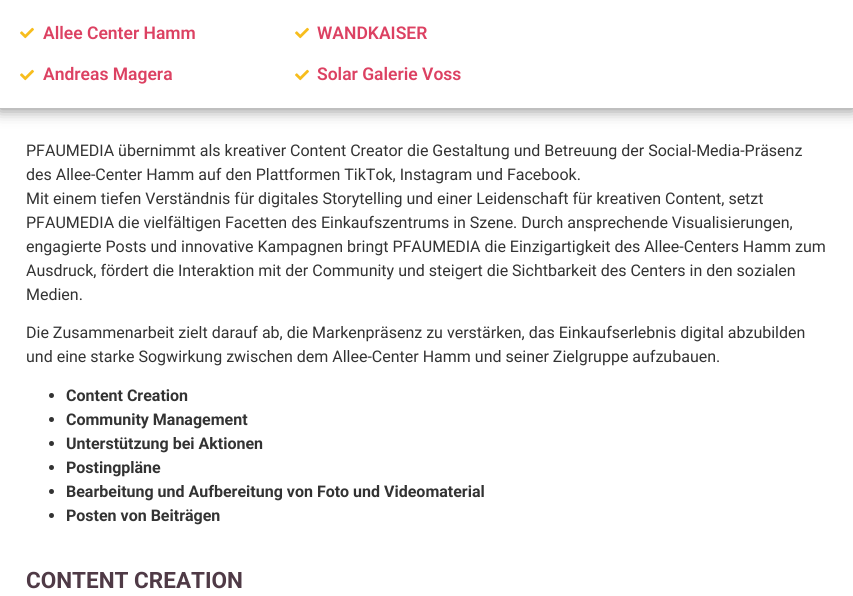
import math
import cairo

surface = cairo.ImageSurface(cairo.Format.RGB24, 853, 596)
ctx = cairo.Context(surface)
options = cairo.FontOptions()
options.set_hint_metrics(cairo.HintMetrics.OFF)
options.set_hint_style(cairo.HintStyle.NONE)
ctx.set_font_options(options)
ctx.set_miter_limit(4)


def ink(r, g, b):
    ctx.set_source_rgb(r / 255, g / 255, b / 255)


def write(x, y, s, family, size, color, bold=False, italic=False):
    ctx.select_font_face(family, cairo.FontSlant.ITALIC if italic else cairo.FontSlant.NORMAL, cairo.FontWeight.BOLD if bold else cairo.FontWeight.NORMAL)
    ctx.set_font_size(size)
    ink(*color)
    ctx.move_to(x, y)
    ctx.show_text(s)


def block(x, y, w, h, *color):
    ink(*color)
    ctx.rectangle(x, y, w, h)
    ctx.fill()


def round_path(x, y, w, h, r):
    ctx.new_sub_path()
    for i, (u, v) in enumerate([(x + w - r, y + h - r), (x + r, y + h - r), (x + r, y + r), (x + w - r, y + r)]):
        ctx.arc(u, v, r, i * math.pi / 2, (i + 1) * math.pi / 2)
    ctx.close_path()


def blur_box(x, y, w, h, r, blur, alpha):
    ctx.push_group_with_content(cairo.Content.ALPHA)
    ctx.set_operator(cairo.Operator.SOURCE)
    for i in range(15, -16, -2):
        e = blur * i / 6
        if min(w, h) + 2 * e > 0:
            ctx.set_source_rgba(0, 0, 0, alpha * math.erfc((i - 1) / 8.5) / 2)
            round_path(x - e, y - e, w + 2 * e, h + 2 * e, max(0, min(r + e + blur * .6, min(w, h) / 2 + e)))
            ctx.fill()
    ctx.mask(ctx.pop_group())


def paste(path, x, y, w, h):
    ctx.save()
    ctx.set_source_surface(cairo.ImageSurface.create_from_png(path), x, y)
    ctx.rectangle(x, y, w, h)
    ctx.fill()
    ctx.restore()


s1 = dict(family="Roboto SemiBold", size=17.5, color=(220, 65, 98))
s2 = dict(family="Roboto", size=16, color=(51, 51, 51))
s3 = dict(family="Roboto", size=16, color=(51, 51, 51), bold=True)
s4 = dict(family="Roboto", size=22.5, color=(79, 58, 70), bold=True)

ink(255, 255, 255)
ctx.paint()
ink(0, 0, 0)
blur_box(-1, -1, 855, 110, 0, 8, 0.5)
block(0, 0, 853, 108, 255, 255, 255)
paste("pic1.png", 20, 27, 14, 12)
write(43, 39, "Allee Center Hamm", **s1)
paste("pic1.png", 20, 69, 14, 12)
write(43, 80, "Andreas Magera", **s1)
paste("pic1.png", 295, 27, 14, 12)
write(317, 39, "WANDKAISER", **s1)
paste("pic1.png", 295, 69, 14, 12)
write(317, 80, "Solar Galerie Voss", **s1)
write(26, 156, "PFAUMEDIA übernimmt als kreativer Content Creator die Gestaltung und Betreuung der Social-Media-Präsenz", **s2)
write(26, 180, "des Allee-Center Hamm auf den Plattformen TikTok, Instagram und Facebook.", **s2)
write(26, 204, "Mit einem tiefen Verständnis für digitales Storytelling und einer Leidenschaft für kreativen Content, setzt", **s2)
write(26, 228, "PFAUMEDIA die vielfältigen Facetten des Einkaufszentrums in Szene. Durch ansprechende Visualisierungen,", **s2)
write(26, 252, "engagierte Posts und innovative Kampagnen bringt PFAUMEDIA die Einzigartigkeit des Allee-Centers Hamm zum", **s2)
write(26, 276, "Ausdruck, fördert die Interaktion mit der Community und steigert die Sichtbarkeit des Centers in den sozialen", **s2)
write(26, 300, "Medien.", **s2)
write(26, 338, "Die Zusammenarbeit zielt darauf ab, die Markenpräsenz zu verstärken, das Einkaufserlebnis digital abzubilden", **s2)
write(26, 362, "und eine starke Sogwirkung zwischen dem Allee-Center Hamm und seiner Zielgruppe aufzubauen.", **s2)
ctx.new_path()
ctx.arc(51.5, 395.5, 2.5, 0, 2 * math.pi)
ctx.fill()
write(66, 401, "Content Creation", **s3)
ctx.new_path()
ctx.arc(51.5, 419.5, 2.5, 0, 2 * math.pi)
ctx.fill()
write(66, 425, "Community Management", **s3)
ctx.new_path()
ctx.arc(51.5, 443.5, 2.5, 0, 2 * math.pi)
ctx.fill()
write(66, 449, "Unterstützung bei Aktionen", **s3)
ctx.new_path()
ctx.arc(51.5, 467.5, 2.5, 0, 2 * math.pi)
ctx.fill()
write(66, 473, "Postingpläne", **s3)
ctx.new_path()
ctx.arc(51.5, 491.5, 2.5, 0, 2 * math.pi)
ctx.fill()
write(66, 497, "Bearbeitung und Aufbereitung von Foto und Videomaterial", **s3)
ctx.new_path()
ctx.arc(51.5, 515.5, 2.5, 0, 2 * math.pi)
ctx.fill()
write(66, 521, "Posten von Beiträgen", **s3)
write(26, 588, "CONTENT CREATION", **s4)
surface.write_to_png("screenshot.png")
